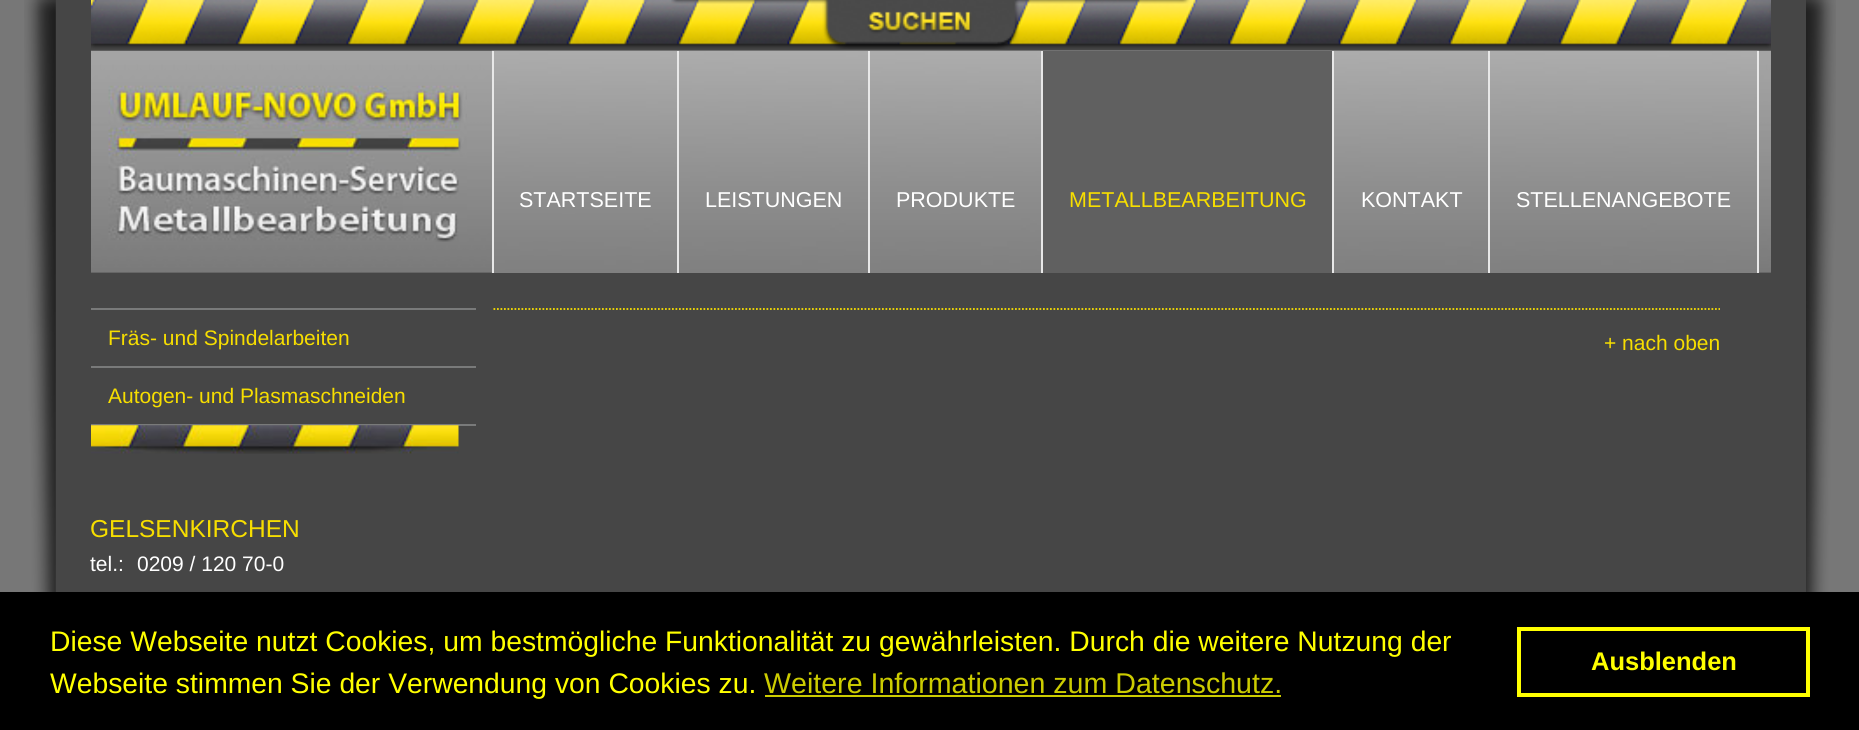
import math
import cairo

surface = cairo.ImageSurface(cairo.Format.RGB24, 1859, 730)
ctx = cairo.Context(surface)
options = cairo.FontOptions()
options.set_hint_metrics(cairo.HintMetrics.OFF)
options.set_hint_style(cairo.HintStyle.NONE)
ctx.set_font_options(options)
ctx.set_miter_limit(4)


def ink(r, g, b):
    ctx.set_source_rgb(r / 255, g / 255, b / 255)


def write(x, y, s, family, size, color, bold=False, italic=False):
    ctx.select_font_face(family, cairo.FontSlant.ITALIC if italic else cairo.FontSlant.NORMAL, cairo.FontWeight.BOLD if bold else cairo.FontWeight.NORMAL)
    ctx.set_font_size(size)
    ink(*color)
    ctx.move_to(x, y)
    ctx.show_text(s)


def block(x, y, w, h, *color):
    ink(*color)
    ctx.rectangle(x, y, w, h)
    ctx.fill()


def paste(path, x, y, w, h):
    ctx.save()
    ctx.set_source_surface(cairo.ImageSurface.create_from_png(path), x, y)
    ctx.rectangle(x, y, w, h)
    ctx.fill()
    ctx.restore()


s1 = dict(family="Liberation Sans", size=21.5, color=(255, 255, 255))
s2 = dict(family="Liberation Sans", size=21.5, color=(247, 222, 0))
s3 = dict(family="Liberation Sans", size=21, color=(247, 222, 0))
s4 = dict(family="Liberation Sans", size=24.5, color=(247, 222, 0))
s5 = dict(family="Liberation Sans", size=21, color=(255, 255, 255))
s6 = dict(family="Liberation Sans", size=28.3, color=(255, 255, 0))
s7 = dict(family="Liberation Sans", size=28.6, color=(204, 204, 0))
s8 = dict(family="Liberation Sans", size=25.5, color=(255, 255, 0), bold=True)

ink(119, 119, 119)
ctx.paint()
paste("pic1.png", 24, 0, 1812, 592)
block(56, 0, 1750, 592, 70, 70, 70)
paste("pic2.png", 91, 0, 1680, 49)
paste("pic3.png", 671, 0, 519, 49)
paste("pic5.png", 91, 50, 1680, 223)
paste("pic4.png", 108, 85, 359, 157)
paste("pic6.png", 491, 50, 187, 223)
block(492, 51, 2, 222, 232, 232, 232)
write(519, 207, "STARTSEITE", **s1)
paste("pic7.png", 677, 50, 191, 223)
block(677, 51, 2, 222, 232, 232, 232)
write(705, 207, "LEISTUNGEN", **s1)
paste("pic8.png", 868, 50, 174, 223)
block(868, 51, 2, 222, 232, 232, 232)
write(896, 207, "PRODUKTE", **s1)
paste("pic9.png", 1041, 50, 291, 1)
paste("pic10.png", 1331, 50, 157, 223)
block(1043, 51, 289, 222, 96, 96, 96)
block(1041, 51, 2, 222, 232, 232, 232)
write(1069, 207, "METALLBEARBEITUNG", **s2)
block(1332, 51, 2, 222, 232, 232, 232)
write(1361, 207, "KONTAKT", **s1)
paste("pic11.png", 1487, 50, 272, 223)
block(1757, 51, 2, 222, 232, 232, 232)
block(1488, 51, 2, 222, 232, 232, 232)
write(1516, 207, "STELLENANGEBOTE", **s1)
block(91, 308, 385, 2, 121, 122, 122)
block(91, 366, 385, 2, 121, 122, 122)
write(108, 345, "Fräs- und Spindelarbeiten", **s3)
block(91, 424, 385, 2, 121, 122, 122)
write(108, 403, "Autogen- und Plasmaschneiden", **s3)
paste("pic12.png", 91, 425, 368, 29)
write(90, 537, "GELSENKIRCHEN", **s4)
write(90, 571, "tel.:", **s5)
write(137, 571, "0209 / 120 70-0", **s5)
ctx.new_path()
ctx.move_to(493.5, 309)
ctx.line_to(1720, 309)
ink(247, 222, 0)
ctx.set_line_width(1.8)
ctx.set_dash([1.75, 1.75])
ctx.stroke()
write(1604, 350, "+ nach oben", **s3)
block(0, 592, 1859, 138, 0, 0, 0)
write(50, 651, "Diese Webseite nutzt Cookies, um bestmögliche Funktionalität zu gewährleisten. Durch die weitere Nutzung der", **s6)
write(50, 693, "Webseite stimmen Sie der Verwendung von Cookies zu.", **s6)
write(764, 693, "Weitere Informationen zum Datenschutz.", **s7)
block(765, 695, 516, 2, 204, 204, 0)
ctx.rectangle(1519, 629, 289, 66)
ink(255, 255, 0)
ctx.set_line_width(4)
ctx.set_dash([])
ctx.stroke()
write(1591, 670, "Ausblenden", **s8)
surface.write_to_png("screenshot.png")
